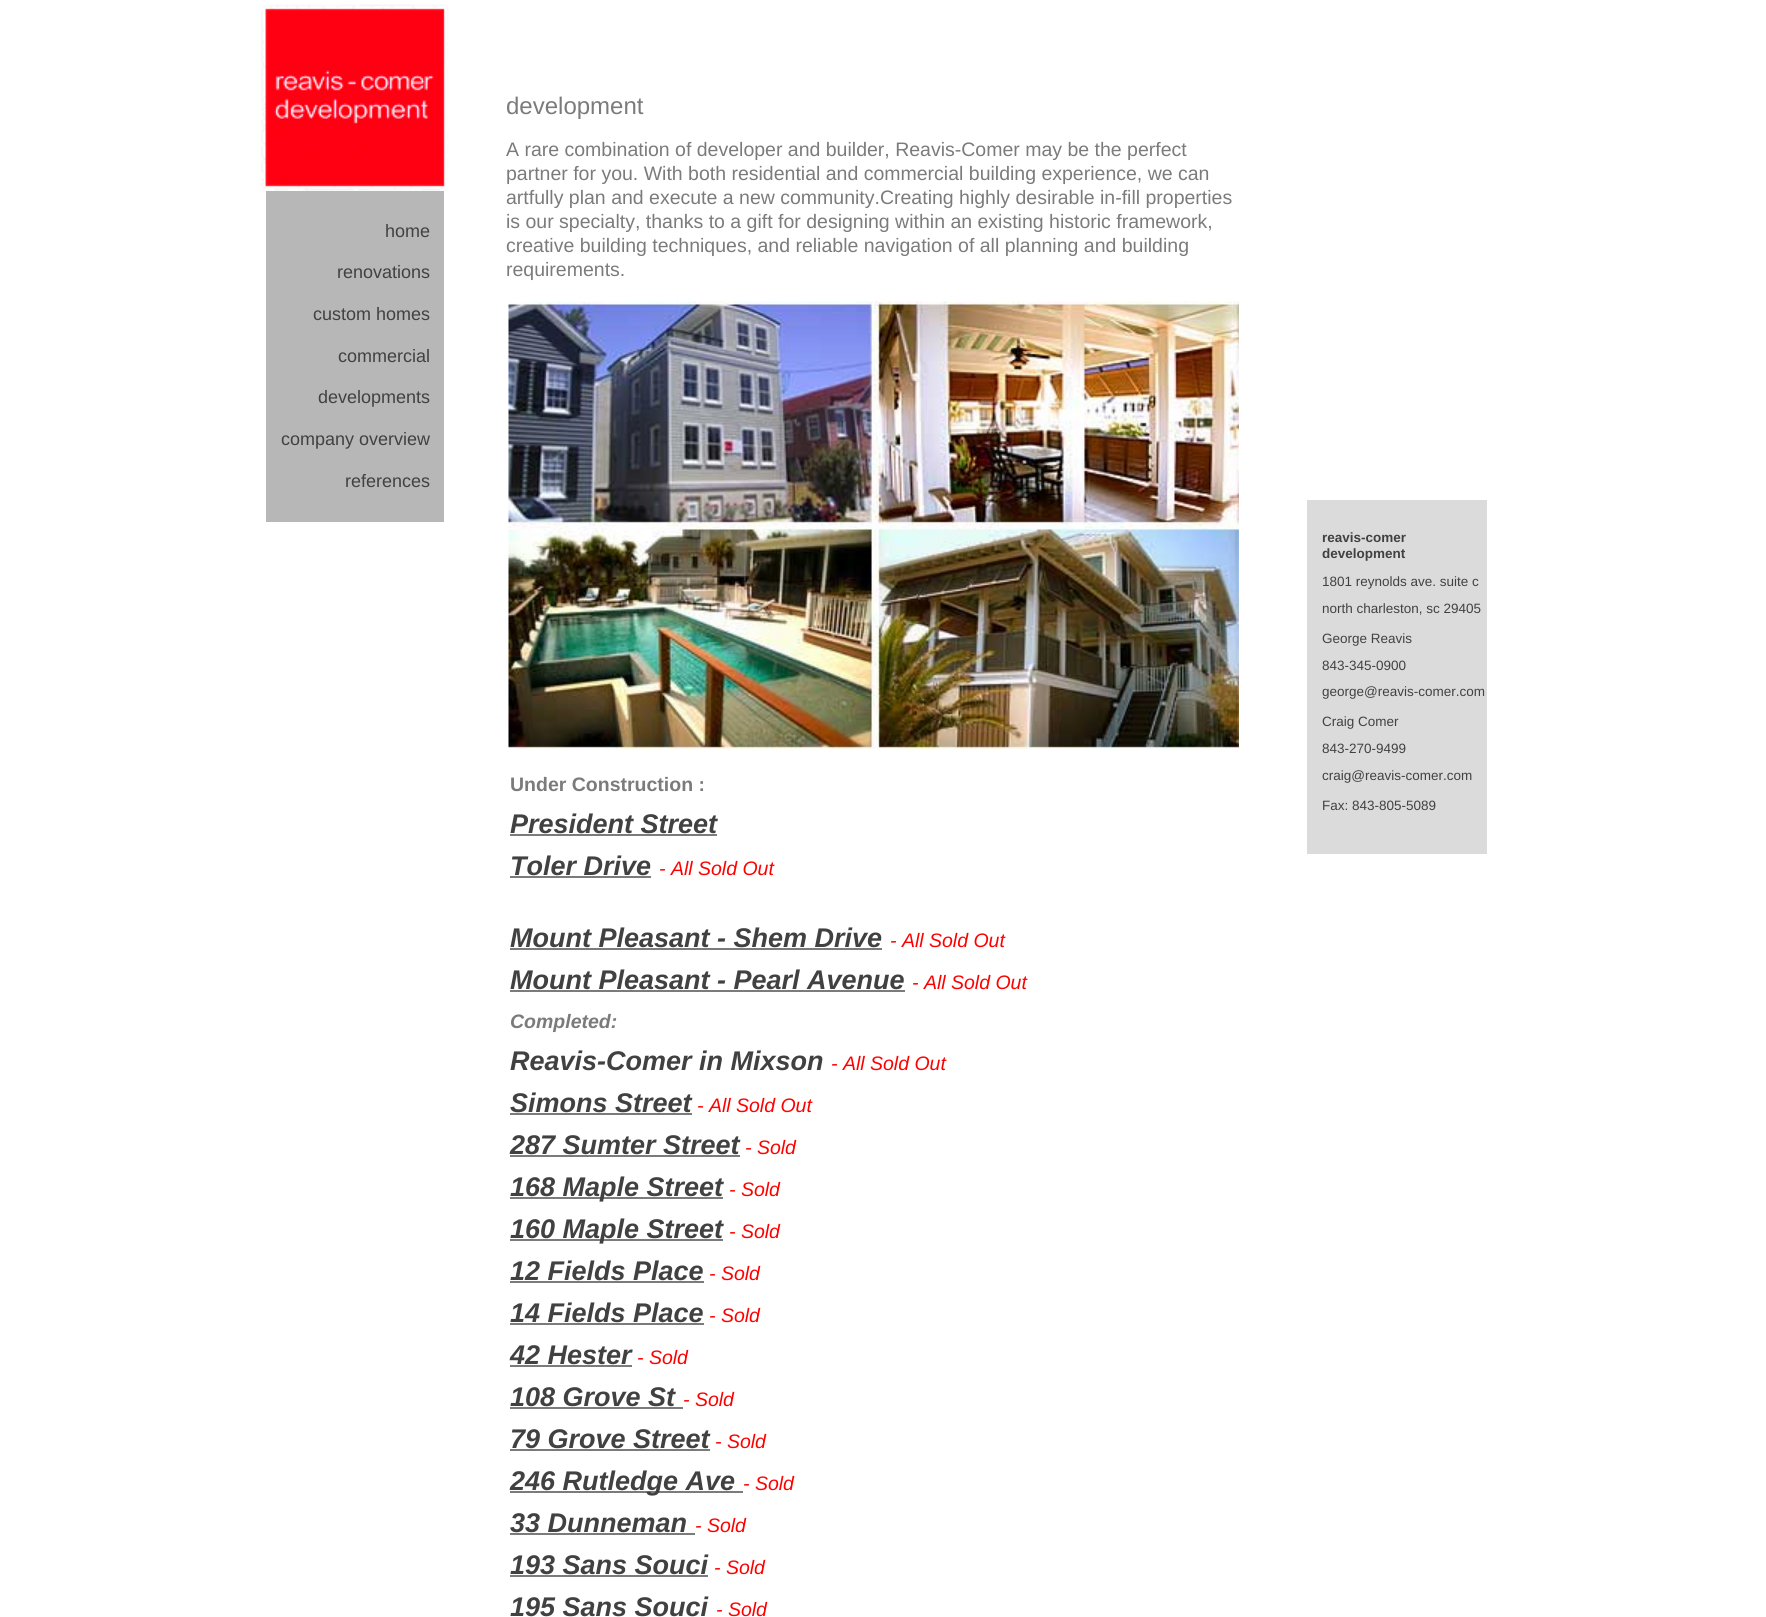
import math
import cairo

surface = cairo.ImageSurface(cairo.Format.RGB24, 1766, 1617)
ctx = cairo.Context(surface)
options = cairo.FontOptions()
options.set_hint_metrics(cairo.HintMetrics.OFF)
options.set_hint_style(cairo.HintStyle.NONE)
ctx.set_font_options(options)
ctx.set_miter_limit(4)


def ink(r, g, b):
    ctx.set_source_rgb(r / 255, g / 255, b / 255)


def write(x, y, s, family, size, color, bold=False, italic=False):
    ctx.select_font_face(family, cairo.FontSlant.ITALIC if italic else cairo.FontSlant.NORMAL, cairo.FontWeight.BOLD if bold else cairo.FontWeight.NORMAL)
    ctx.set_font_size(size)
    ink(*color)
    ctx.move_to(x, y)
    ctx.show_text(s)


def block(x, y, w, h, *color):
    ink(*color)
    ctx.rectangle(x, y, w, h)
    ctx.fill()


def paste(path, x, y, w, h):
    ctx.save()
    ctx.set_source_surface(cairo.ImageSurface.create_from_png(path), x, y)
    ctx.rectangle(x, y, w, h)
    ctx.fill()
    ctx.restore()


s1 = dict(family="Liberation Sans", size=18, color=(65, 65, 65))
s2 = dict(family="Liberation Sans", size=24, color=(123, 123, 123))
s3 = dict(family="Liberation Sans", size=19.5, color=(123, 123, 123))
s4 = dict(family="Liberation Sans", size=19.5, color=(123, 123, 123), bold=True)
s5 = dict(family="Liberation Sans", size=27, color=(65, 65, 65), bold=True, italic=True)
s6 = dict(family="Liberation Sans", size=19.5, color=(255, 0, 0), italic=True)
s7 = dict(family="Liberation Sans", size=19.5, color=(123, 123, 123), bold=True, italic=True)
s8 = dict(family="Liberation Sans", size=13.5, color=(65, 65, 65), bold=True)
s9 = dict(family="Liberation Sans", size=13.5, color=(65, 65, 65))

ink(255, 255, 255)
ctx.paint()
paste("pic1.png", 261, 4, 188, 187)
block(266, 191, 178, 331, 183, 183, 183)
write(385, 237, "home", **s1)
write(337, 278, "renovations", **s1)
write(313, 320, "custom homes", **s1)
write(338, 362, "commercial", **s1)
write(318, 403, "developments", **s1)
write(281, 445, "company overview", **s1)
write(345, 487, "references", **s1)
write(506, 114, "development", **s2)
write(506, 156, "A rare combination of developer and builder, Reavis-Comer may be the perfect", **s3)
write(506, 180, "partner for you. With both residential and commercial building experience, we can", **s3)
write(506, 204, "artfully plan and execute a new community.Creating highly desirable in-fill properties", **s3)
write(506, 228, "is our specialty, thanks to a gift for designing within an existing historic framework,", **s3)
write(506, 252, "creative building techniques, and reliable navigation of all planning and building", **s3)
write(506, 276, "requirements.", **s3)
paste("pic2.png", 508, 301, 731, 448)
write(510, 791, "Under Construction :", **s4)
write(510, 833, "President Street", **s5)
block(510, 834, 207, 2, 123, 123, 123)
write(510, 875, "Toler Drive", **s5)
block(510, 876, 141, 2, 123, 123, 123)
write(659, 875, "- All Sold Out", **s6)
write(510, 947, "Mount Pleasant - Shem Drive", **s5)
block(510, 948, 372, 2, 123, 123, 123)
write(890, 947, "- All Sold Out", **s6)
write(510, 989, "Mount Pleasant - Pearl Avenue", **s5)
block(510, 990, 395, 2, 123, 123, 123)
write(912, 989, "- All Sold Out", **s6)
write(510, 1028, "Completed:", **s7)
write(510, 1070, "Reavis-Comer in Mixson", **s5)
write(831, 1070, "- All Sold Out", **s6)
write(510, 1112, "Simons Street", **s5)
block(510, 1113, 182, 2, 123, 123, 123)
write(697, 1112, "- All Sold Out", **s6)
write(510, 1154, "287 Sumter Street", **s5)
block(510, 1155, 230, 2, 123, 123, 123)
write(745, 1154, "- Sold", **s6)
block(510, 1197, 213, 2, 123, 123, 123)
write(510, 1196, "168 Maple Street", **s5)
write(729, 1196, "- Sold", **s6)
block(510, 1239, 213, 2, 123, 123, 123)
write(510, 1238, "160 Maple Street", **s5)
write(729, 1238, "- Sold", **s6)
write(510, 1280, "12 Fields Place", **s5)
block(510, 1281, 194, 2, 123, 123, 123)
write(709, 1280, "- Sold", **s6)
write(510, 1322, "14 Fields Place", **s5)
block(510, 1323, 194, 2, 123, 123, 123)
write(709, 1322, "- Sold", **s6)
write(510, 1364, "42 Hester", **s5)
block(510, 1365, 122, 2, 123, 123, 123)
write(637, 1364, "- Sold", **s6)
write(510, 1406, "108 Grove St", **s5)
block(510, 1407, 173, 2, 123, 123, 123)
write(683, 1406, "- Sold", **s6)
write(510, 1448, "79 Grove Street", **s5)
block(510, 1449, 200, 2, 123, 123, 123)
write(715, 1448, "- Sold", **s6)
block(510, 1491, 233, 2, 123, 123, 123)
write(510, 1490, "246 Rutledge Ave", **s5)
write(743, 1490, "- Sold", **s6)
write(510, 1532, "33 Dunneman", **s5)
block(510, 1533, 185, 2, 123, 123, 123)
write(695, 1532, "- Sold", **s6)
write(510, 1574, "193 Sans Souci", **s5)
block(510, 1575, 198, 2, 123, 123, 123)
write(714, 1574, "- Sold", **s6)
write(510, 1616, "195 Sans Souci", **s5)
write(716, 1616, "- Sold", **s6)
block(1307, 500, 180, 354, 219, 219, 219)
write(1322, 542, "reavis-comer", **s8)
write(1322, 558, "development", **s8)
write(1322, 586, "1801 reynolds ave. suite c", **s9)
write(1322, 613, "north charleston, sc 29405", **s9)
write(1322, 643, "George Reavis", **s9)
write(1322, 670, "843-345-0900", **s9)
write(1322, 696, "george@reavis-comer.com", **s9)
write(1322, 726, "Craig Comer", **s9)
write(1322, 753, "843-270-9499", **s9)
write(1322, 780, "craig@reavis-comer.com", **s9)
write(1322, 810, "Fax: 843-805-5089", **s9)
surface.write_to_png("screenshot.png")
